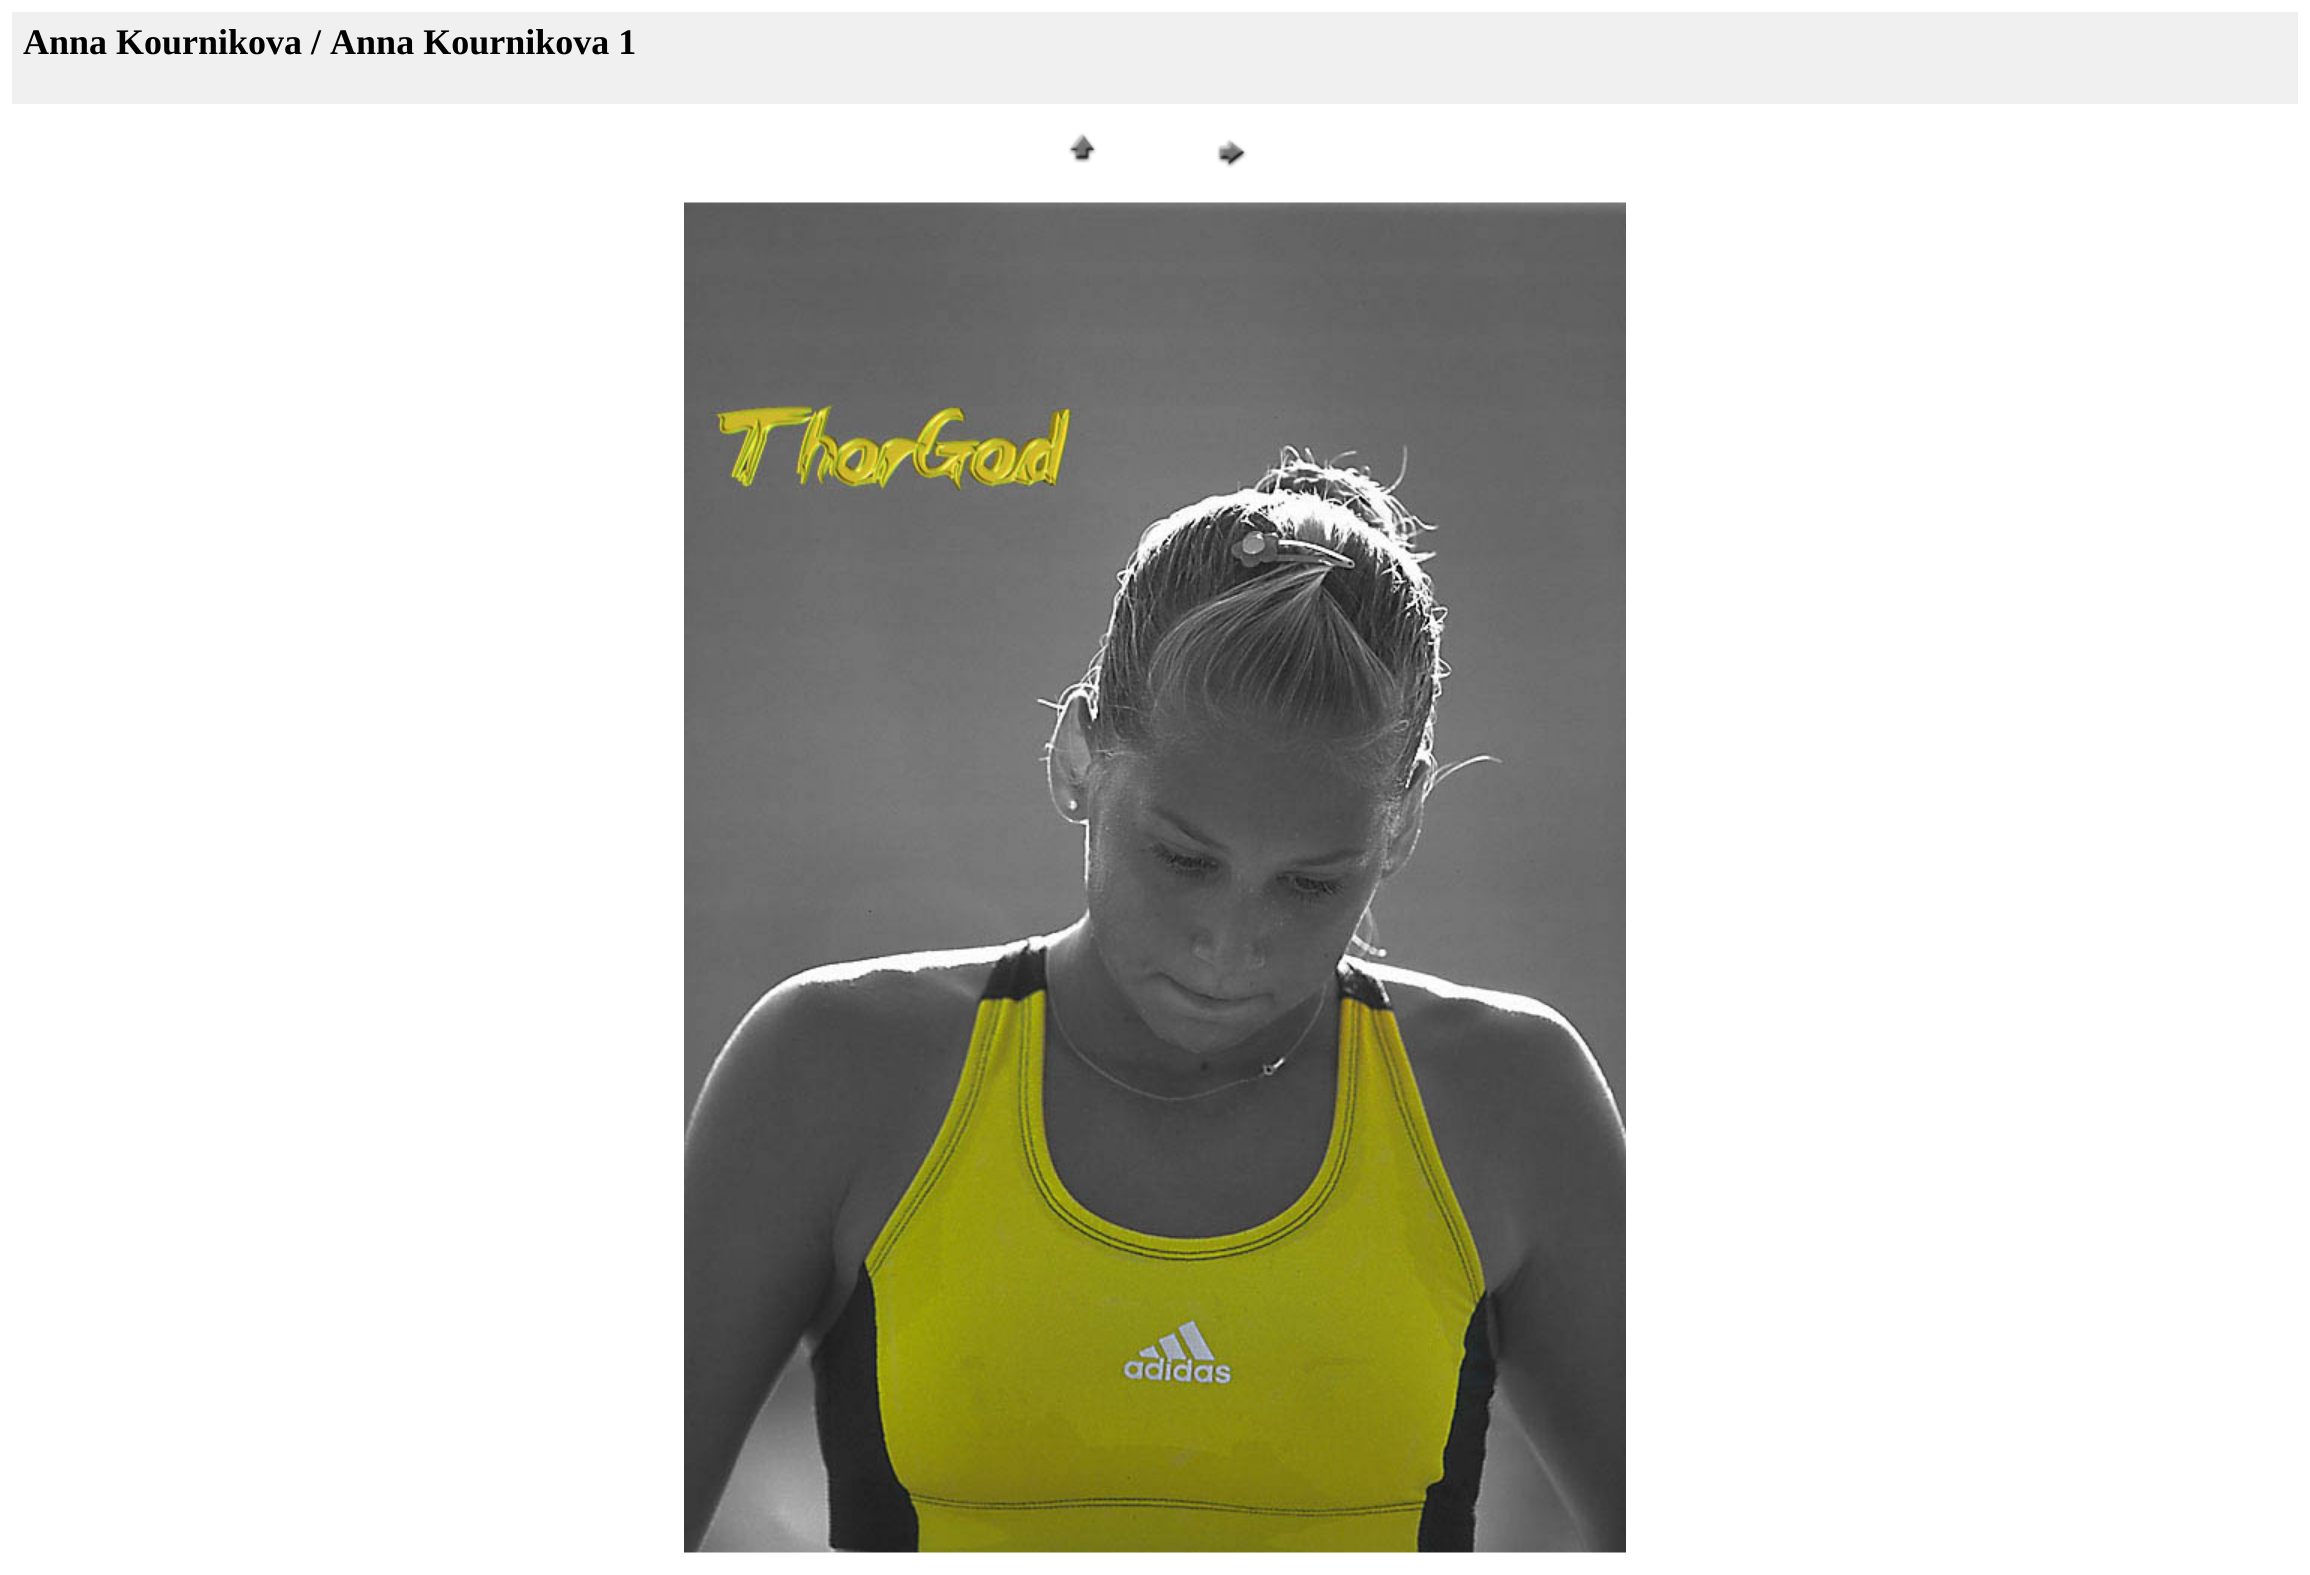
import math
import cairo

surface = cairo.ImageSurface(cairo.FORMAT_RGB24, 2310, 1575)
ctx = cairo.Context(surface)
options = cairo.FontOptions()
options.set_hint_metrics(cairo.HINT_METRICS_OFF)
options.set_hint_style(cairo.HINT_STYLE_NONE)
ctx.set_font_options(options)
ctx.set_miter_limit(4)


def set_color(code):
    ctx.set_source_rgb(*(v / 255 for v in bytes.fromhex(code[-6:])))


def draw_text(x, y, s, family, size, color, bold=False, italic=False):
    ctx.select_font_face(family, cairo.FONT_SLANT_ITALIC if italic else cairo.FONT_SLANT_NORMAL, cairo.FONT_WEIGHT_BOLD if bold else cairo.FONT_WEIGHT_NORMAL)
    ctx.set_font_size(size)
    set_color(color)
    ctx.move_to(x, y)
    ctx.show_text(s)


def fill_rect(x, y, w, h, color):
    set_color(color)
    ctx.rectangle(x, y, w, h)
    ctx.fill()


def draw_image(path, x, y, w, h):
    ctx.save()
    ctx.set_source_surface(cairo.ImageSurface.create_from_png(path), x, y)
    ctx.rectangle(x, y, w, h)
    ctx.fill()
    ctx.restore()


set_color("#ffffff")
ctx.paint()
fill_rect(12, 12, 2286, 92, "#f0f0f0")
draw_text(23, 54, "Anna Kournikova / Anna Kournikova 1", "Liberation Serif", 36, "#000000", bold=True)
draw_image("assets/img1.png", 1068, 133, 29, 30)
draw_image("assets/img2.png", 1217, 139, 30, 29)
draw_image("assets/img3.png", 684, 202, 942, 1351)
surface.write_to_png("output.png")
